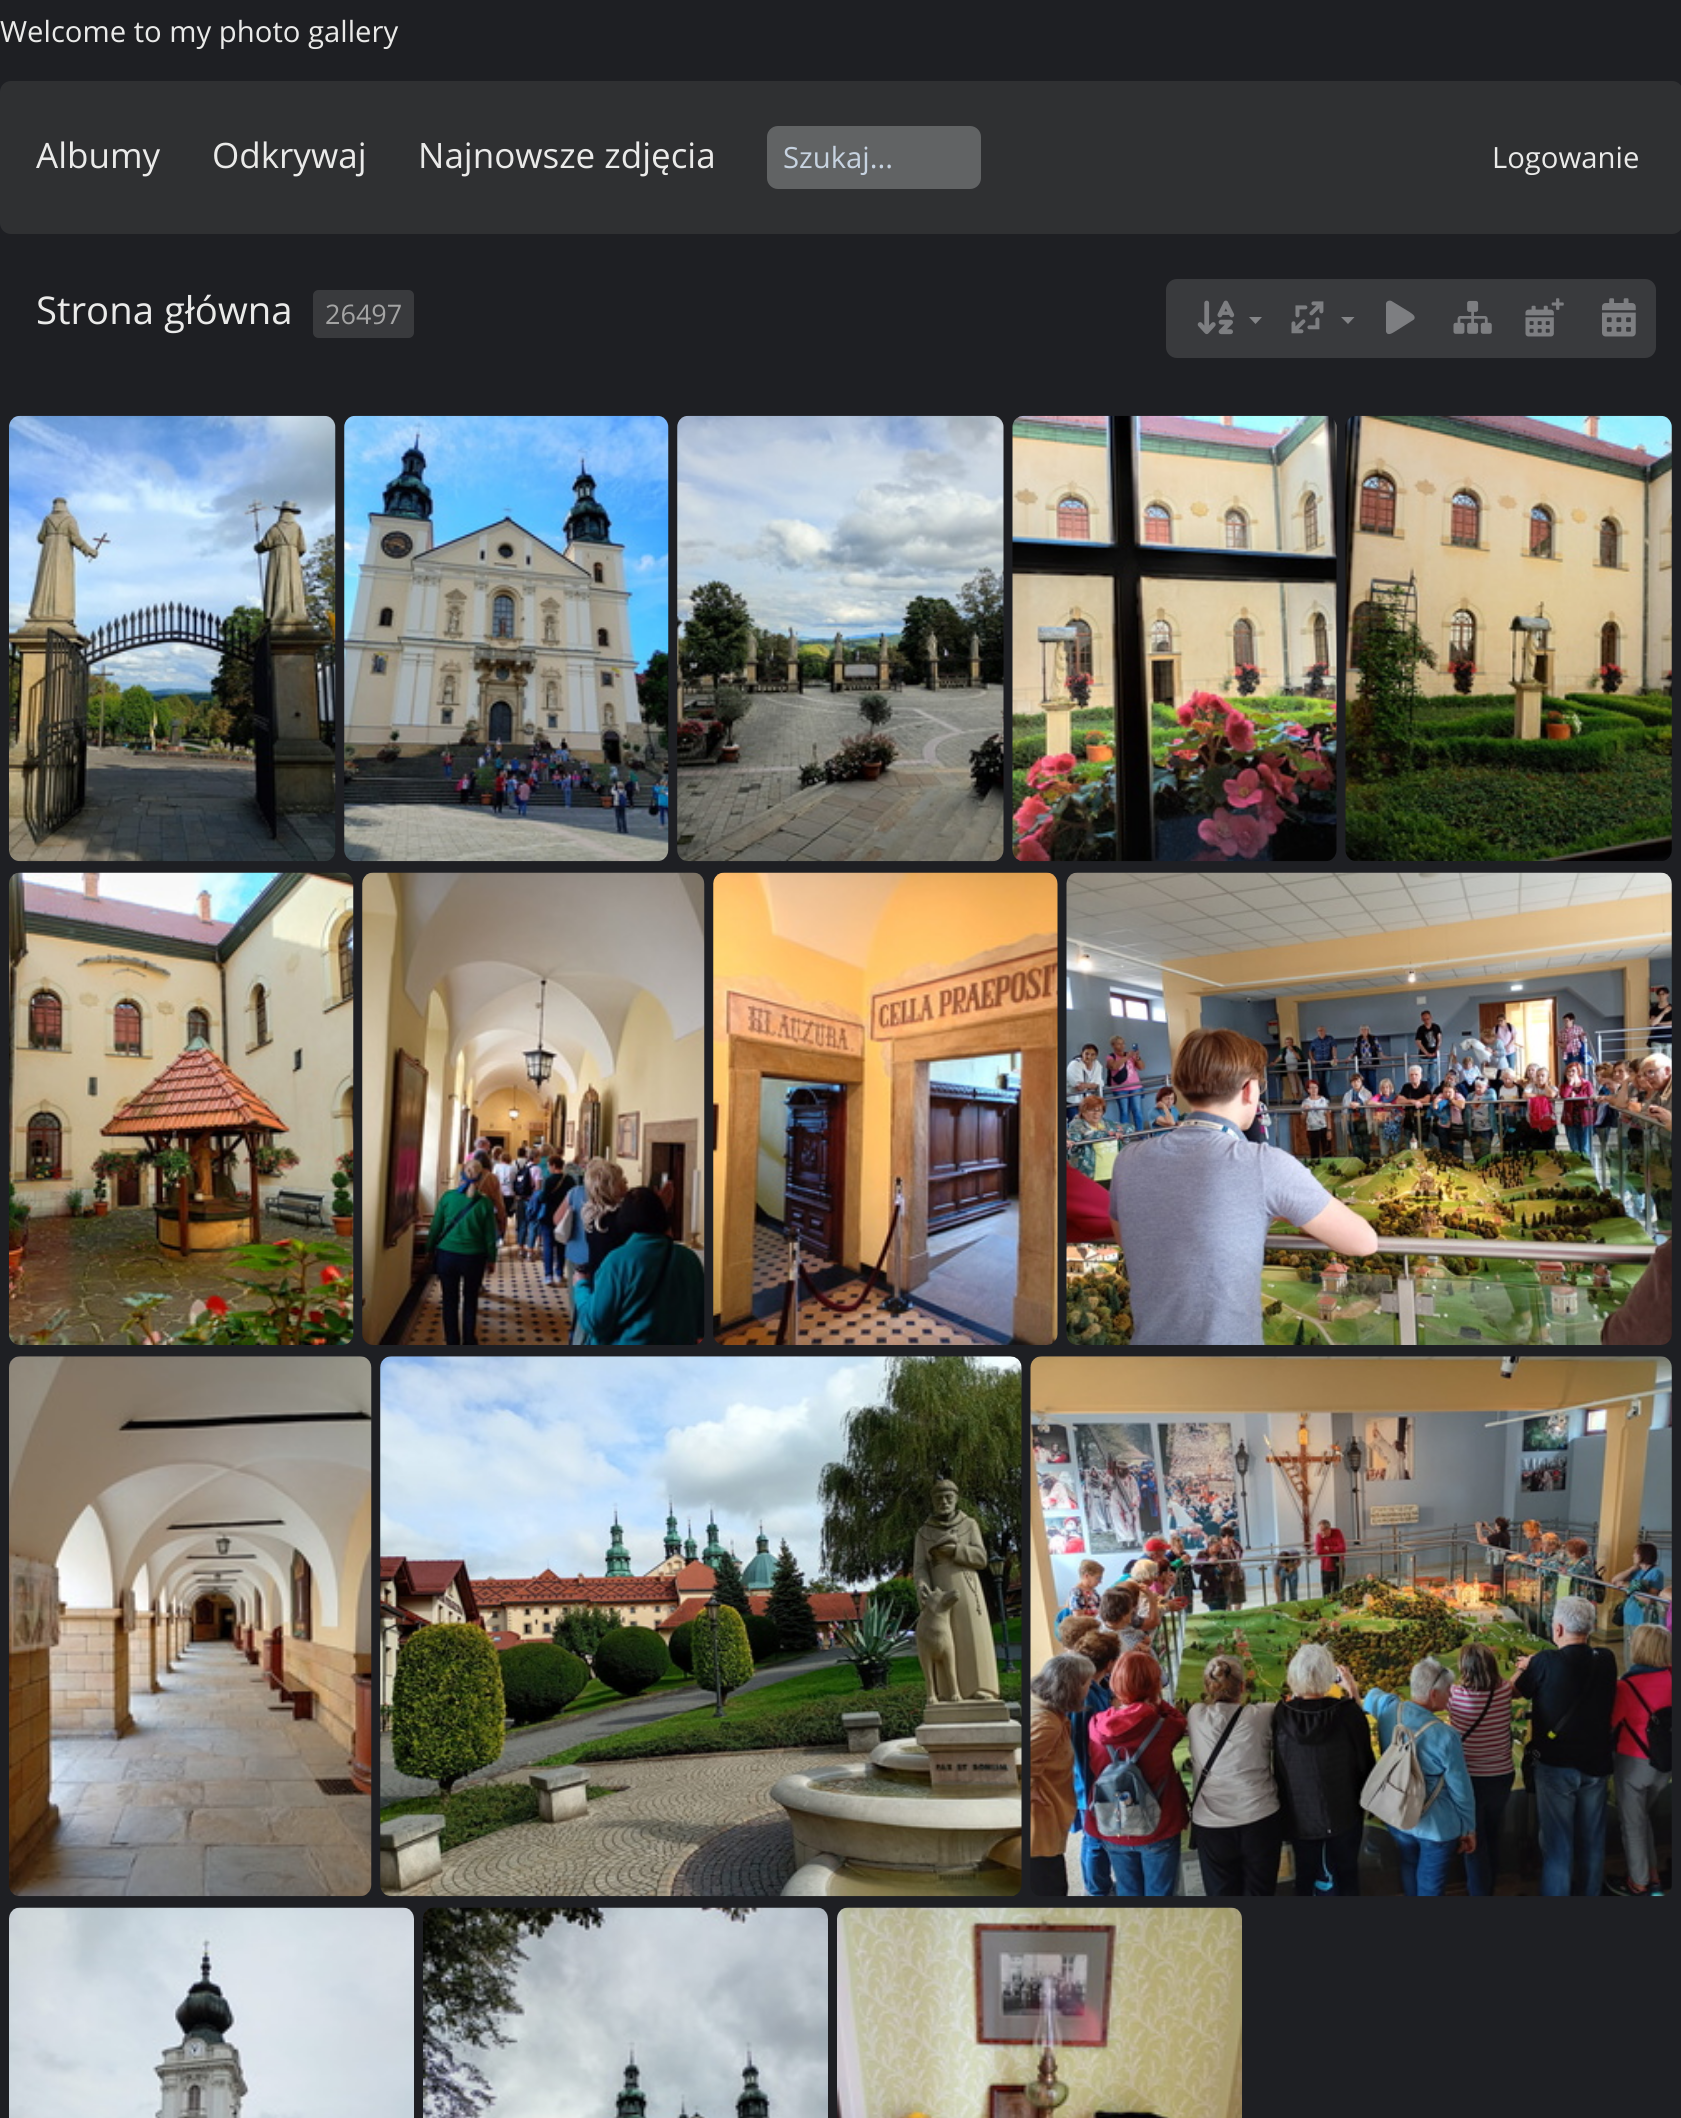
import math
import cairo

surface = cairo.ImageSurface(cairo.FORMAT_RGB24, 1681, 2118)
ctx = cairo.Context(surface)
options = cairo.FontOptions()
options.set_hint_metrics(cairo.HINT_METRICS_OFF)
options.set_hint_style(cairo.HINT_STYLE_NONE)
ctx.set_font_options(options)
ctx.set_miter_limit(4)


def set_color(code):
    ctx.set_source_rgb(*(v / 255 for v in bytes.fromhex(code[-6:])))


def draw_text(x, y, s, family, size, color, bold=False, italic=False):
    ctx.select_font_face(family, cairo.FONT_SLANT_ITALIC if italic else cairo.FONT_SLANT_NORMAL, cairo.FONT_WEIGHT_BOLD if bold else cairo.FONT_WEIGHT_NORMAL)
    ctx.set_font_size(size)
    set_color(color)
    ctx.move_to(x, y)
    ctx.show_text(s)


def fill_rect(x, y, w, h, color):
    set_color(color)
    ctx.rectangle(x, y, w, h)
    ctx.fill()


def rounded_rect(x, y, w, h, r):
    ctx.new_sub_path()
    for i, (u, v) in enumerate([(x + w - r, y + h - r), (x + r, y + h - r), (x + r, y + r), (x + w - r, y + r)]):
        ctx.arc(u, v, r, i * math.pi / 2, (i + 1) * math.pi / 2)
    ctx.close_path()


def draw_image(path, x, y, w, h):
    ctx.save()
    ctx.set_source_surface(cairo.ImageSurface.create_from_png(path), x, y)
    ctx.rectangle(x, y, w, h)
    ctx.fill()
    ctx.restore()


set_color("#1e1f23")
ctx.paint()
draw_text(0, 42, "Welcome to my photo gallery", "Open Sans", 29.25, "#eaeae9")
set_color("#2f3032")
rounded_rect(0, 81, 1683, 153, 11)
ctx.fill()
draw_text(36, 168, "Albumy", "Open Sans", 35, "#eaeae9")
draw_text(212, 168, "Odkrywaj", "Open Sans", 35, "#eaeae9")
draw_text(418, 168, "Najnowsze zdjęcia", "Open Sans", 35, "#eaeae9")
set_color("#616364")
rounded_rect(767, 126, 214, 63, 11)
ctx.fill()
draw_text(783, 168, "Szukaj...", "Open Sans", 29.25, "#c7d3e1")
draw_text(1492, 168, "Logowanie", "Open Sans", 29.25, "#eaeae9")
draw_text(36, 324, "Strona główna", "Open Sans", 38.25, "#eaeae9")
fill_rect(324, 290, 79, 48, "#393a3d")
draw_text(325, 324, "26497", "Open Sans", 27, "#a4a4a4")
set_color("#393a3d")
ctx.new_path()
ctx.move_to(318.5, 290)
ctx.line_to(324, 290)
ctx.line_to(324, 338)
ctx.line_to(318.5, 338)
ctx.curve_to(315.5, 338, 313, 335.5, 313, 332.5)
ctx.line_to(313, 295.5)
ctx.curve_to(313, 292.5, 315.5, 290, 318.5, 290)
ctx.close_path()
ctx.fill()
ctx.new_path()
ctx.move_to(403, 290)
ctx.line_to(408.5, 290)
ctx.curve_to(411.5, 290, 414, 292.5, 414, 295.5)
ctx.line_to(414, 332.5)
ctx.curve_to(414, 335.5, 411.5, 338, 408.5, 338)
ctx.line_to(403, 338)
ctx.close_path()
ctx.fill()
rounded_rect(1166, 279, 490, 79, 11)
ctx.fill()
draw_image("assets/img1.png", 1197, 300, 38, 35)
set_color("#848588")
ctx.new_path()
ctx.move_to(1249, 317)
ctx.line_to(1262, 317)
ctx.line_to(1255.5, 324)
ctx.close_path()
ctx.fill()
draw_image("assets/img2.png", 1291, 301, 33, 33)
ctx.new_path()
ctx.move_to(1341, 317)
ctx.line_to(1354.5, 317)
ctx.line_to(1348, 324)
ctx.close_path()
ctx.fill()
set_color("#7d7e81")
ctx.new_path()
ctx.move_to(1391.5, 301)
ctx.curve_to(1389.5, 300, 1386.5, 301, 1386, 303.5)
ctx.line_to(1386, 331.5)
ctx.curve_to(1387.5, 336.5, 1392.5, 333, 1395, 331.5)
ctx.line_to(1414, 319.5)
ctx.curve_to(1416.5, 316, 1411.5, 313.5, 1409.5, 312)
ctx.close_path()
ctx.fill()
draw_image("assets/img3.png", 1453, 300, 39, 34)
draw_image("assets/img4.png", 1525, 298, 39, 39)
draw_image("assets/img5.png", 1602, 298, 34, 39)
draw_image("assets/img6.png", 9, 415, 327, 447)
draw_image("assets/img7.png", 344, 415, 325, 447)
draw_image("assets/img8.png", 677, 415, 327, 447)
draw_image("assets/img9.png", 1012, 415, 325, 447)
draw_image("assets/img10.png", 1345, 415, 327, 446)
draw_image("assets/img11.png", 9, 872, 345, 473)
draw_image("assets/img12.png", 362, 872, 343, 473)
draw_image("assets/img13.png", 713, 872, 345, 473)
draw_image("assets/img14.png", 1066, 872, 606, 473)
draw_image("assets/img15.png", 9, 1356, 363, 541)
draw_image("assets/img16.png", 380, 1356, 642, 541)
draw_image("assets/img17.png", 1030, 1356, 642, 541)
draw_image("assets/img18.png", 9, 1907, 405, 211)
draw_image("assets/img19.png", 423, 1907, 405, 211)
draw_image("assets/img20.png", 837, 1907, 405, 211)
surface.write_to_png("output.png")
